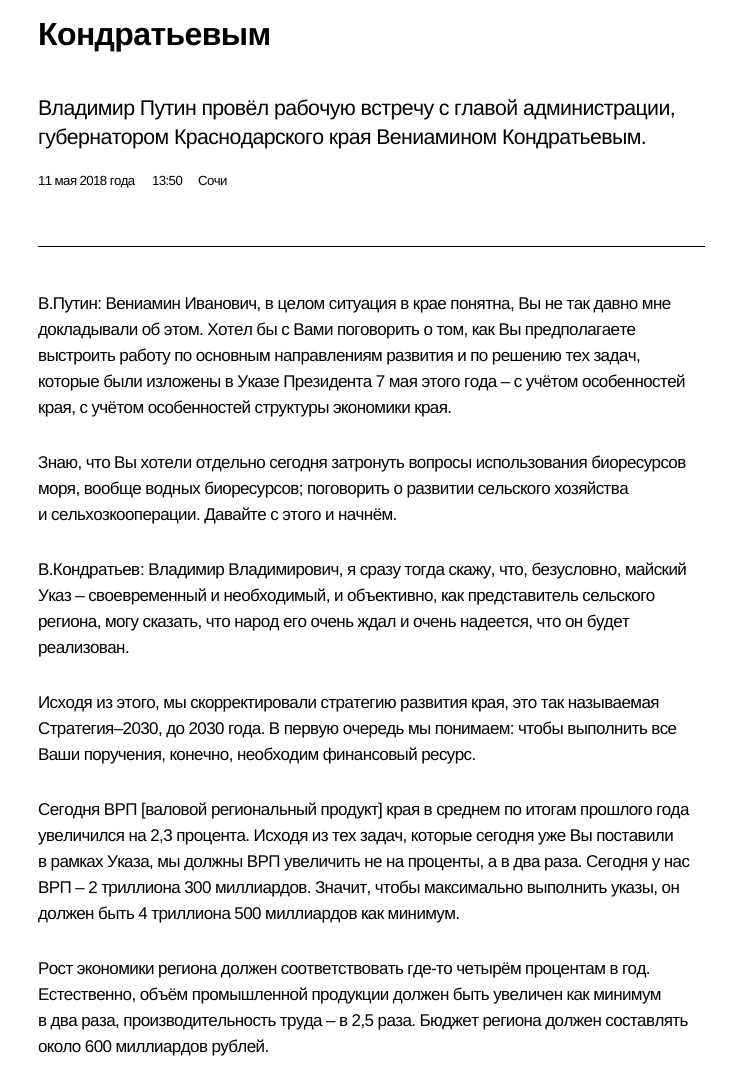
import math
import cairo

surface = cairo.ImageSurface(cairo.FORMAT_RGB24, 743, 1081)
ctx = cairo.Context(surface)
options = cairo.FontOptions()
options.set_hint_metrics(cairo.HINT_METRICS_OFF)
options.set_hint_style(cairo.HINT_STYLE_NONE)
ctx.set_font_options(options)
ctx.set_miter_limit(4)


def set_color(code):
    ctx.set_source_rgb(*(v / 255 for v in bytes.fromhex(code[-6:])))


def draw_spaced(x, y, s, letter, word):
    ctx.move_to(x, y)
    for ch in s:
        ctx.show_text(ch)
        ctx.rel_move_to(letter + word * (ch == ' '), 0)


def fill_rect(x, y, w, h, color):
    set_color(color)
    ctx.rectangle(x, y, w, h)
    ctx.fill()


set_color("#ffffff")
ctx.paint()
fill_rect(38, 246, 667, 1, "#000000")
ctx.select_font_face("Liberation Sans", cairo.FONT_SLANT_NORMAL, cairo.FONT_WEIGHT_BOLD)
ctx.set_font_size(32)
draw_spaced(38, 45, "Кондратьевым", -0.6, 0)
ctx.select_font_face("Liberation Sans")
ctx.set_font_size(21.3)
draw_spaced(38, 115, "Владимир Путин провёл рабочую встречу с главой администрации,", -0.6, 0)
draw_spaced(38, 144, "губернатором Краснодарского края Вениамином Кондратьевым.", -0.6, 0)
ctx.set_font_size(13.25)
draw_spaced(38, 185, "11 мая 2018 года", -0.6, 0)
draw_spaced(152, 185, "13:50", -0.6, 0)
draw_spaced(198, 185, "Сочи", -0.6, 0)
ctx.set_font_size(17)
draw_spaced(38, 309, "В.Путин: Вениамин Иванович, в целом ситуация в крае понятна, Вы не так давно мне", -0.6, 0)
draw_spaced(38, 335, "докладывали об этом. Хотел бы с Вами поговорить о том, как Вы предполагаете", -0.6, 0)
draw_spaced(38, 361, "выстроить работу по основным направлениям развития и по решению тех задач,", -0.6, 0)
draw_spaced(38, 387, "которые были изложены в Указе Президента 7 мая этого года – с учётом особенностей", -0.6, 0)
draw_spaced(38, 413, "края, с учётом особенностей структуры экономики края.", -0.6, 0)
draw_spaced(38, 468, "Знаю, что Вы хотели отдельно сегодня затронуть вопросы использования биоресурсов", -0.6, 0)
draw_spaced(38, 494, "моря, вообще водных биоресурсов; поговорить о развитии сельского хозяйства", -0.6, 0)
draw_spaced(38, 520, "и сельхозкооперации. Давайте с этого и начнём.", -0.6, 0)
draw_spaced(38, 575, "В.Кондратьев", -0.6, 0)
draw_spaced(140, 575, ": Владимир Владимирович, я сразу тогда скажу, что, безусловно, майский", -0.6, 0)
draw_spaced(38, 601, "Указ – своевременный и необходимый, и объективно, как представитель сельского", -0.6, 0)
draw_spaced(38, 627, "региона, могу сказать, что народ его очень ждал и очень надеется, что он будет", -0.6, 0)
draw_spaced(38, 653, "реализован.", -0.6, 0)
draw_spaced(38, 708, "Исходя из этого, мы скорректировали стратегию развития края, это так называемая", -0.6, 0)
draw_spaced(38, 734, "Стратегия–2030, до 2030 года. В первую очередь мы понимаем: чтобы выполнить все", -0.6, 0)
draw_spaced(38, 760, "Ваши поручения, конечно, необходим финансовый ресурс.", -0.6, 0)
draw_spaced(38, 815, "Сегодня ВРП [валовой региональный продукт] края в среднем по итогам прошлого года", -0.6, 0)
draw_spaced(38, 841, "увеличился на 2,3 процента. Исходя из тех задач, которые сегодня уже Вы поставили", -0.6, 0)
draw_spaced(38, 867, "в рамках Указа, мы должны ВРП увеличить не на проценты, а в два раза. Сегодня у нас", -0.6, 0)
draw_spaced(38, 893, "ВРП – 2 триллиона 300 миллиардов. Значит, чтобы максимально выполнить указы, он", -0.6, 0)
draw_spaced(38, 919, "должен быть 4 триллиона 500 миллиардов как минимум.", -0.6, 0)
draw_spaced(38, 974, "Рост экономики региона должен соответствовать где-то четырём процентам в год.", -0.6, 0)
draw_spaced(38, 1000, "Естественно, объём промышленной продукции должен быть увеличен как минимум", -0.6, 0)
draw_spaced(38, 1026, "в два раза, производительность труда – в 2,5 раза. Бюджет региона должен составлять", -0.6, 0)
draw_spaced(38, 1052, "около 600 миллиардов рублей.", -0.6, 0)
surface.write_to_png("output.png")
